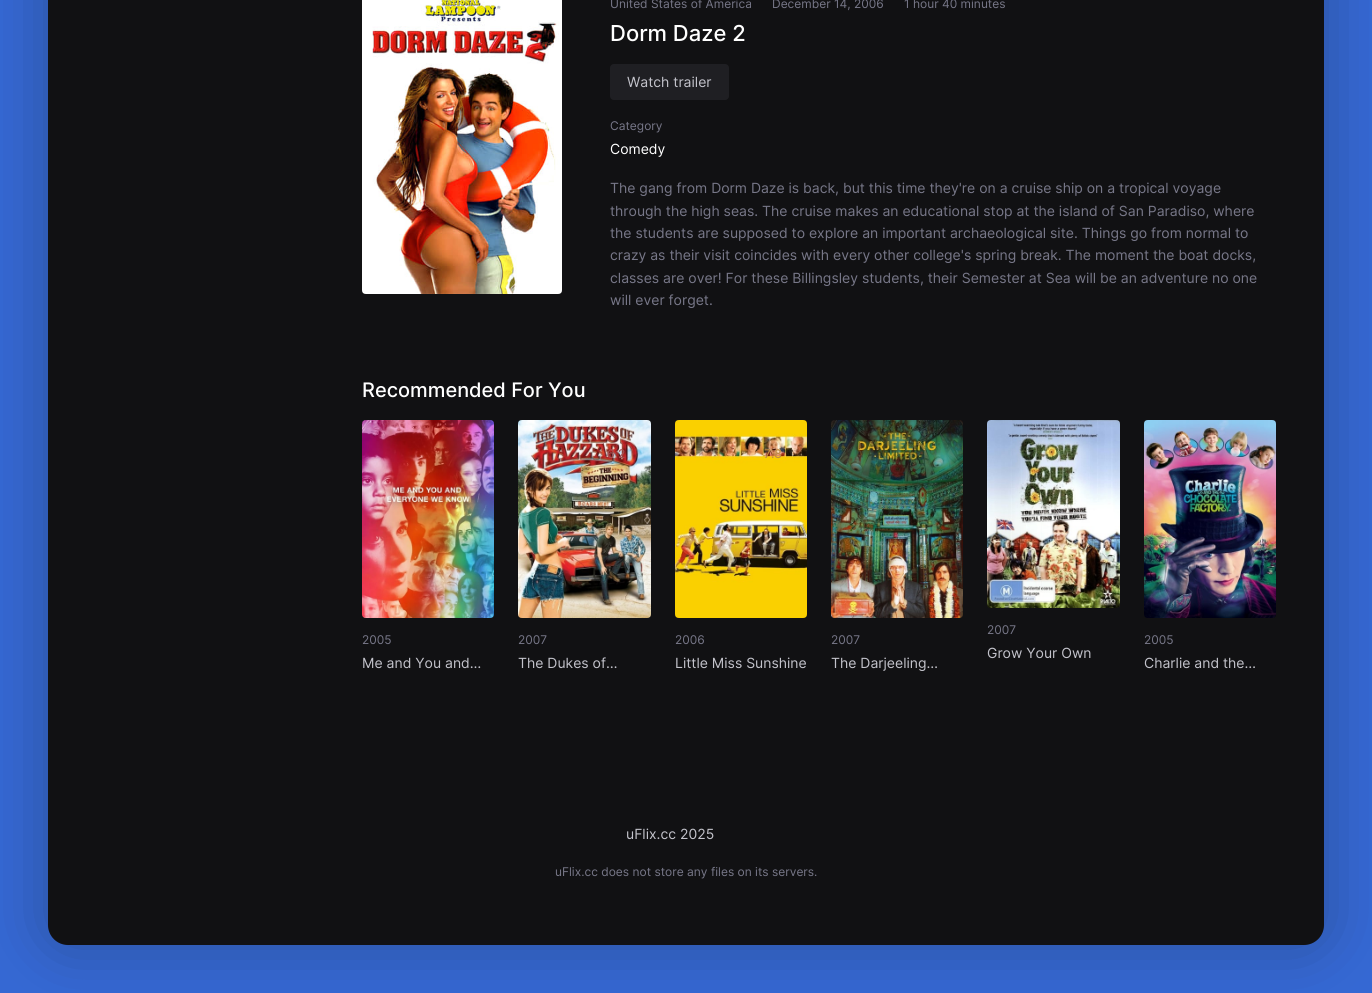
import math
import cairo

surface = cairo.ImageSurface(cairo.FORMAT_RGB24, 1372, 993)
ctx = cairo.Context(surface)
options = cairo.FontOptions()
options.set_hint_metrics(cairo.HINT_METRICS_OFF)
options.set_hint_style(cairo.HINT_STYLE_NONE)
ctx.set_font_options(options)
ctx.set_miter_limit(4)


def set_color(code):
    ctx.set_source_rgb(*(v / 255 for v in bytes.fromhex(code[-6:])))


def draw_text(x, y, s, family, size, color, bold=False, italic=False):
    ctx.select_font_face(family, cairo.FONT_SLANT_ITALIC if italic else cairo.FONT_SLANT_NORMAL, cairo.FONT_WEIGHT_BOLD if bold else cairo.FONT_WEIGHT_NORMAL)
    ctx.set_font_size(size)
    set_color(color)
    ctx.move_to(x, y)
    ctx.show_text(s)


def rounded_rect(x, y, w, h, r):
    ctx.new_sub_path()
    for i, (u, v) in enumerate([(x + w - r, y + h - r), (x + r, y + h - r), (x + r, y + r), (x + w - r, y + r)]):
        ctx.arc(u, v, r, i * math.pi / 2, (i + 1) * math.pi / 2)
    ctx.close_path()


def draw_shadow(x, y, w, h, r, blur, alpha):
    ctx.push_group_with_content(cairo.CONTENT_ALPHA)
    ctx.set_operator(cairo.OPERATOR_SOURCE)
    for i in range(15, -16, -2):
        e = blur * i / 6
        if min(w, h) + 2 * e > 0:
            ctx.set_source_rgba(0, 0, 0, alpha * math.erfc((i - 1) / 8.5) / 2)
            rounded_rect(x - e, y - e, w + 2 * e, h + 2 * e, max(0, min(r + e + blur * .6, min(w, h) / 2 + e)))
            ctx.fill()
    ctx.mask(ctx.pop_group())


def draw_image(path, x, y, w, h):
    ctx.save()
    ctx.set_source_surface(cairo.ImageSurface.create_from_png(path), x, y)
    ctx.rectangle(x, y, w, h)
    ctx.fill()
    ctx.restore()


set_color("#3568d3")
ctx.paint()
set_color("#111113")
draw_shadow(48, -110, 1276, 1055, 20, 30, 0.3)
set_color("#111113")
rounded_rect(48, -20, 1276, 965, 20)
ctx.fill()
draw_image("assets/img1.png", 362, 0, 200, 294)
draw_text(610, 8, "United States of America", "Inter", 12, "#777788")
draw_text(772, 8, "December 14, 2006", "Inter", 12, "#777788")
draw_text(904, 8, "1 hour 40 minutes", "Inter", 12, "#777788")
draw_text(610, 41, "Dorm Daze 2", "Inter Medium", 22, "#ffffff")
set_color("#1f1f23")
rounded_rect(610, 64, 119, 36, 4)
ctx.fill()
draw_text(627, 87, "Watch trailer", "Inter", 14, "#c3c3cb")
draw_text(610, 130, "Category", "Inter", 12, "#777788")
draw_text(610, 154, "Comedy", "Inter", 14, "#ffffff")
draw_text(610, 193, "The gang from Dorm Daze is back, but this time they're on a cruise ship on a tropical voyage", "Inter", 14, "#777788")
draw_text(610, 216, "through the high seas. The cruise makes an educational stop at the island of San Paradiso, where", "Inter", 14, "#777788")
draw_text(610, 238, "the students are supposed to explore an important archaeological site. Things go from normal to", "Inter", 14, "#777788")
draw_text(610, 260, "crazy as their visit coincides with every other college's spring break. The moment the boat docks,", "Inter", 14, "#777788")
draw_text(610, 283, "classes are over! For these Billingsley students, their Semester at Sea will be an adventure no one", "Inter", 14, "#777788")
draw_text(610, 305, "will ever forget.", "Inter", 14, "#777788")
draw_text(362, 397, "Recommended For You", "Inter Medium", 20, "#ffffff")
draw_image("assets/img2.png", 362, 420, 132, 198)
draw_text(362, 644, "2005", "Inter", 12, "#777788")
draw_text(362, 668, "Me and You and…", "Inter", 14, "#c3c3cb")
draw_image("assets/img3.png", 518, 420, 133, 198)
draw_text(607, 458, "6.2", "Inter Medium", 12, "#a44f50")
draw_text(518, 644, "2007", "Inter", 12, "#777788")
draw_text(518, 668, "The Dukes of…", "Inter", 14, "#c3c3cb")
draw_image("assets/img4.png", 675, 420, 132, 198)
draw_text(764, 458, "7.8", "Inter Medium", 12, "#bf8c46")
draw_text(675, 644, "2006", "Inter", 12, "#777788")
draw_text(675, 668, "Little Miss Sunshine", "Inter", 14, "#c3c3cb")
draw_image("assets/img5.png", 831, 420, 132, 198)
draw_text(831, 644, "2007", "Inter", 12, "#777788")
draw_text(831, 668, "The Darjeeling…", "Inter", 14, "#c3c3cb")
draw_image("assets/img6.png", 987, 420, 133, 188)
draw_text(987, 634, "2007", "Inter", 12, "#777788")
draw_text(987, 658, "Grow Your Own", "Inter", 14, "#c3c3cb")
draw_image("assets/img7.png", 1144, 420, 132, 198)
draw_text(1144, 644, "2005", "Inter", 12, "#777788")
draw_text(1144, 668, "Charlie and the…", "Inter", 14, "#c3c3cb")
draw_text(626, 839, "uFlix.cc 2025", "Inter", 14, "#c3c3cb")
draw_text(555, 876, "uFlix.cc does not store any files on its servers.", "Inter", 12, "#777788")
surface.write_to_png("output.png")
